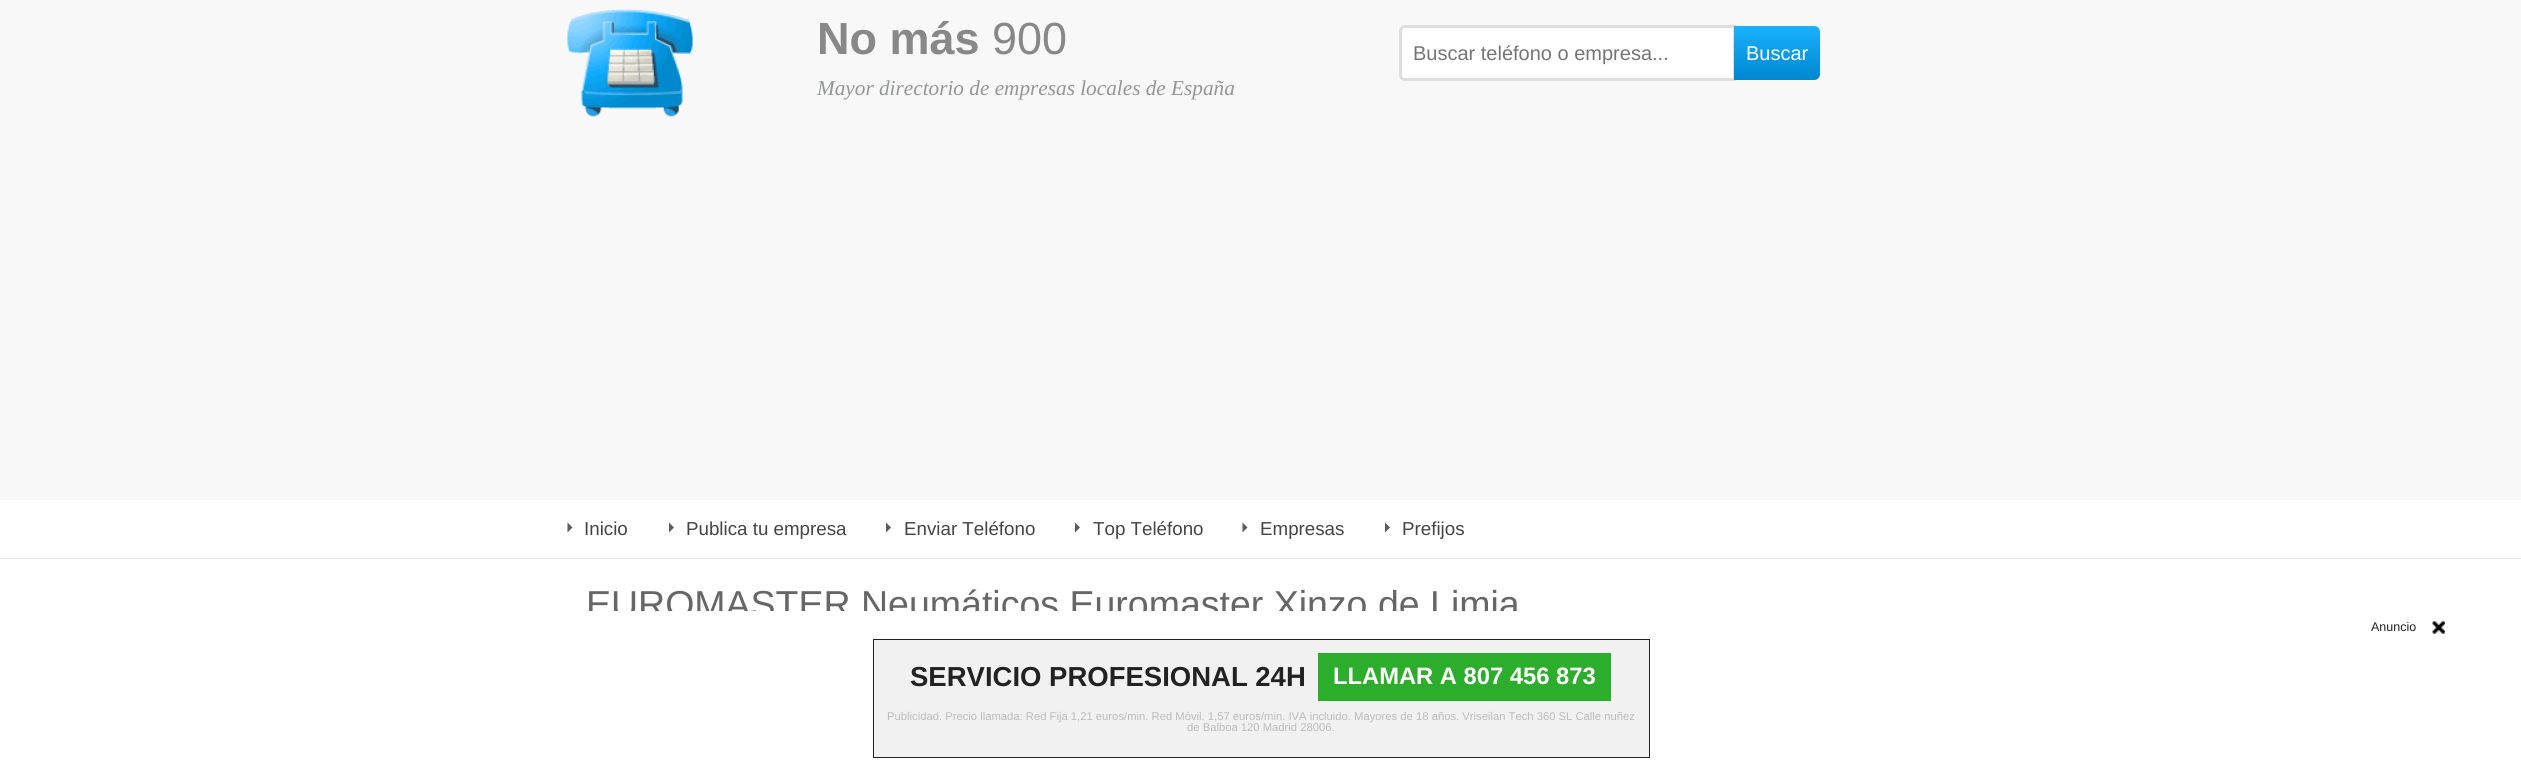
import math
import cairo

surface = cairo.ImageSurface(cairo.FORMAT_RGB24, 2521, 761)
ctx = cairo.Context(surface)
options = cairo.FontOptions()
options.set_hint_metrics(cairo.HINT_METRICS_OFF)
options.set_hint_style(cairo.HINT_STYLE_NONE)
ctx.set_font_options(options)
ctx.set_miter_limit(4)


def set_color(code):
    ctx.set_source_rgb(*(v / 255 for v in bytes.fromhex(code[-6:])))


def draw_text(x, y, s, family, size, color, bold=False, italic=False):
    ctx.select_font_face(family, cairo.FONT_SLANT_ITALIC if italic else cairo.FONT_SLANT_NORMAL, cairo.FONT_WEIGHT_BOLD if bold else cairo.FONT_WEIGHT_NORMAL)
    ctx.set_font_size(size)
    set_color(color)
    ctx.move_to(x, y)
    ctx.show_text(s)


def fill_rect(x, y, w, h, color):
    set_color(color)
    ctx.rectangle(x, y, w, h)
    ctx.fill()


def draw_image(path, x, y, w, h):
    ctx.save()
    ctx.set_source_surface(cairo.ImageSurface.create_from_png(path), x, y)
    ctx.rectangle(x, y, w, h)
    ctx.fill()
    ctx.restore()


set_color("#ffffff")
ctx.paint()
fill_rect(0, 0, 2521, 500, "#f8f8f8")
fill_rect(0, 558, 2521, 1, "#e7e7e7")
draw_image("assets/img1.png", 567, 8, 126, 109)
draw_text(817, 54, "No más", "Liberation Sans", 45, "#888888", bold=True)
draw_text(992, 54, "900", "Liberation Sans", 45, "#888888")
draw_text(817, 95, "Mayor directorio de empresas locales de España", "Liberation Serif", 21.25, "#939597", italic=True)
set_color("#ffffff")
ctx.new_path()
ctx.move_to(1405, 26.5)
ctx.line_to(1734.5, 26.5)
ctx.line_to(1734.5, 79.5)
ctx.line_to(1405, 79.5)
ctx.curve_to(1402.5, 79.5, 1400.5, 77.5, 1400.5, 75)
ctx.line_to(1400.5, 31)
ctx.curve_to(1400.5, 28.5, 1402.5, 26.5, 1405, 26.5)
ctx.close_path()
ctx.fill_preserve()
set_color("#dedede")
ctx.set_line_width(3)
ctx.stroke()
draw_text(1413, 60, "Buscar teléfono o empresa...", "Liberation Sans", 20, "#757575")
gradient = cairo.LinearGradient(1734, 26, 1734, 80)
gradient.add_color_stop_rgba(0, 0.098, 0.698, 1, 1)
gradient.add_color_stop_rgba(1, 0, 0.529, 0.812, 1)
ctx.set_source(gradient)
ctx.new_path()
ctx.move_to(1734, 26)
ctx.line_to(1814, 26)
ctx.curve_to(1817.5, 26, 1820, 28.5, 1820, 32)
ctx.line_to(1820, 74)
ctx.curve_to(1820, 77.5, 1817.5, 80, 1814, 80)
ctx.line_to(1734, 80)
ctx.close_path()
ctx.fill()
draw_text(1746, 60, "Buscar", "Liberation Sans", 20, "#ffffff")
set_color("#5c5c5c")
ctx.new_path()
ctx.move_to(567.5, 532.5)
ctx.line_to(567.5, 522.5)
ctx.line_to(572.5, 527.5)
ctx.close_path()
ctx.fill()
draw_text(584, 535, "Inicio", "Liberation Sans", 18.75, "#444444")
set_color("#5c5c5c")
ctx.new_path()
ctx.move_to(669, 532.5)
ctx.line_to(669, 522.5)
ctx.line_to(674, 527.5)
ctx.close_path()
ctx.fill()
draw_text(686, 535, "Publica tu empresa", "Liberation Sans", 18.75, "#444444")
set_color("#5c5c5c")
ctx.new_path()
ctx.move_to(886, 532.5)
ctx.line_to(886, 522.5)
ctx.line_to(891, 527.5)
ctx.close_path()
ctx.fill()
draw_text(904, 535, "Enviar Teléfono", "Liberation Sans", 18.75, "#444444")
set_color("#5c5c5c")
ctx.new_path()
ctx.move_to(1075, 532.5)
ctx.line_to(1075, 522.5)
ctx.line_to(1080, 527.5)
ctx.close_path()
ctx.fill()
draw_text(1093, 535, "Top Teléfono", "Liberation Sans", 18.75, "#444444")
set_color("#5c5c5c")
ctx.new_path()
ctx.move_to(1242.5, 532.5)
ctx.line_to(1242.5, 522.5)
ctx.line_to(1247.5, 527.5)
ctx.close_path()
ctx.fill()
draw_text(1260, 535, "Empresas", "Liberation Sans", 18.75, "#444444")
set_color("#5c5c5c")
ctx.new_path()
ctx.move_to(1385, 532.5)
ctx.line_to(1385, 522.5)
ctx.line_to(1390, 527.5)
ctx.close_path()
ctx.fill()
draw_text(1402, 535, "Prefijos", "Liberation Sans", 18.75, "#444444")
draw_text(586, 617, "EUROMASTER Neumáticos Euromaster Xinzo de Limia", "Liberation Sans", 37.5, "#666666")
fill_rect(588, 611, 932, 7, "#ffffff")
draw_text(2371, 631, "Anuncio", "Liberation Sans", 12.5, "#222222")
draw_image("assets/img2.png", 2432, 621, 13, 13)
set_color("#f1f1f1")
ctx.rectangle(873.5, 639.5, 776, 118)
ctx.fill_preserve()
set_color("#222222")
ctx.set_line_width(1)
ctx.stroke()
draw_text(910, 686, "SERVICIO PROFESIONAL 24H", "Liberation Sans", 27.5, "#222222", bold=True)
fill_rect(1318, 653, 293, 48, "#2cad2c")
draw_text(1333, 684, "LLAMAR A 807 456 873", "Liberation Sans", 23.75, "#ffffff", bold=True)
draw_text(887, 720, "Publicidad. Precio llamada: Red Fija 1,21 euros/min. Red Móvil. 1,57 euros/min. IVA incluido. Mayores de 18 años. Vriseilan Tech 360 SL Calle nuñez", "Liberation Sans", 11.25, "#bbbbbb")
draw_text(1187, 731, "de Balboa 120 Madrid 28006.", "Liberation Sans", 11.25, "#bbbbbb")
surface.write_to_png("output.png")
